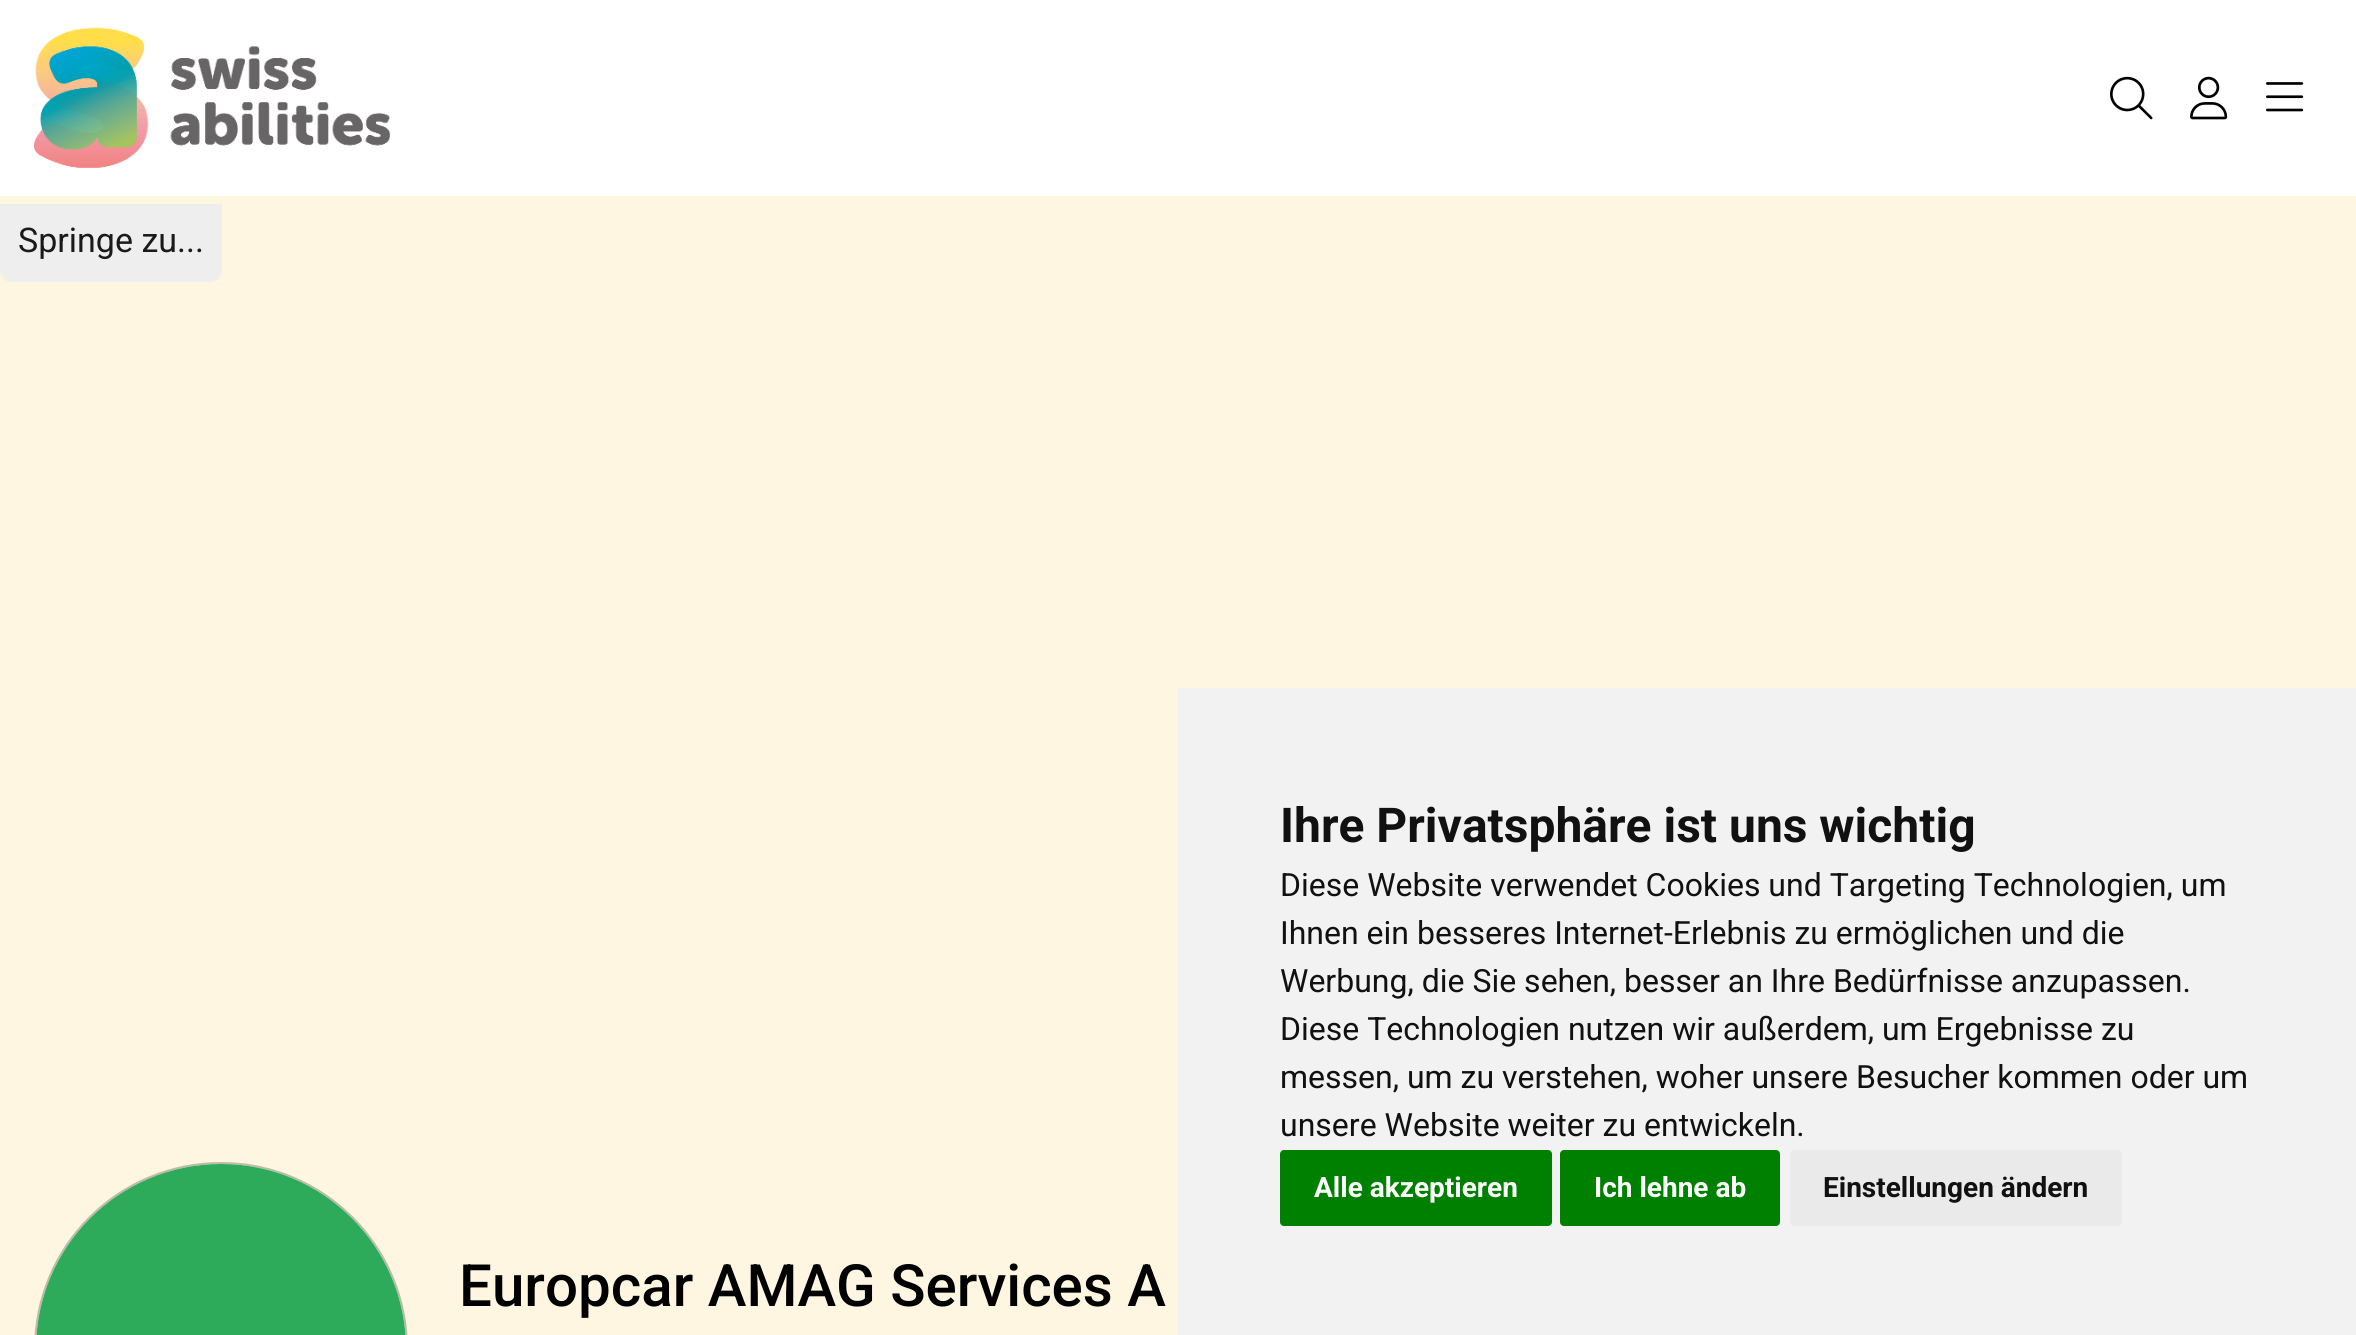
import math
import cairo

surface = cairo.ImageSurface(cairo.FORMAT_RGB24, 2356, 1335)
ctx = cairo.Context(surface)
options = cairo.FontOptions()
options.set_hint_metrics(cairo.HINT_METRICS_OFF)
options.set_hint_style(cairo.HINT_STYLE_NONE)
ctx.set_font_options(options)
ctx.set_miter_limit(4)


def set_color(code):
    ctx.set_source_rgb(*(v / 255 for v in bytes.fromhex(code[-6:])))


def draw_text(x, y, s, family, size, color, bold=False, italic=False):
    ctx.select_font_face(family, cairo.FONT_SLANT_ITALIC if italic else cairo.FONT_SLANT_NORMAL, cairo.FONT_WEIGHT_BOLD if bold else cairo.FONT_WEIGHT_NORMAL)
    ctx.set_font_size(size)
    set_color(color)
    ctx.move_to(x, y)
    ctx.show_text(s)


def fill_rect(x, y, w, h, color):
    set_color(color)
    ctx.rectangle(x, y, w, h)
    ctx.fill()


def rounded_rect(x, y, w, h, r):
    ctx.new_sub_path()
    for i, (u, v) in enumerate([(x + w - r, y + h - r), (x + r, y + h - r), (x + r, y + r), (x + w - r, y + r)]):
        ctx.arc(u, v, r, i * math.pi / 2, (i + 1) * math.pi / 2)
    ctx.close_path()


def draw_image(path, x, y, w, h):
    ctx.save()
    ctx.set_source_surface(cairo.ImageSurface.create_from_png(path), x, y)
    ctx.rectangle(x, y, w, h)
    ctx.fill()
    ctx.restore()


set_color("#ffffff")
ctx.paint()
draw_image("assets/img1.png", 34, 27, 356, 141)
draw_image("assets/img2.png", 2110, 76, 43, 44)
draw_image("assets/img3.png", 2190, 76, 38, 44)
draw_image("assets/img4.png", 2266, 82, 38, 30)
fill_rect(0, 196, 2356, 914, "#fef6e0")
set_color("#eeeeee")
ctx.new_path()
ctx.move_to(2, 204)
ctx.line_to(220, 204)
ctx.line_to(220, 270)
ctx.curve_to(220, 275.5, 215.5, 280, 210, 280)
ctx.line_to(12, 280)
ctx.curve_to(6.5, 280, 2, 275.5, 2, 270)
ctx.close_path()
ctx.fill()
ctx.set_fill_rule(cairo.FILL_RULE_EVEN_ODD)
ctx.new_path()
ctx.move_to(0, 204)
ctx.line_to(222, 204)
ctx.line_to(222, 270)
ctx.curve_to(222, 277, 217, 282, 210, 282)
ctx.line_to(12, 282)
ctx.curve_to(5, 282, 0, 277, 0, 270)
ctx.close_path()
ctx.move_to(2, 204)
ctx.line_to(220, 204)
ctx.line_to(220, 270)
ctx.curve_to(220, 276, 216, 280, 210, 280)
ctx.line_to(12, 280)
ctx.curve_to(6, 280, 2, 276, 2, 270)
ctx.close_path()
ctx.fill()
draw_text(18, 252, "Springe zu...", "Roboto", 34, "#1a1a1a")
fill_rect(1178, 688, 1178, 647, "#f2f2f2")
draw_text(1280, 842, "Ihre Privatsphäre ist uns wichtig", "Roboto", 48, "#111111", bold=True)
draw_text(1280, 896, "Diese Website verwendet Cookies und Targeting Technologien, um", "Roboto", 32, "#111111")
draw_text(1280, 944, "Ihnen ein besseres Internet-Erlebnis zu ermöglichen und die", "Roboto", 32, "#111111")
draw_text(1280, 992, "Werbung, die Sie sehen, besser an Ihre Bedürfnisse anzupassen.", "Roboto", 32, "#111111")
draw_text(1280, 1040, "Diese Technologien nutzen wir außerdem, um Ergebnisse zu", "Roboto", 32, "#111111")
draw_text(1280, 1088, "messen, um zu verstehen, woher unsere Besucher kommen oder um", "Roboto", 32, "#111111")
draw_text(1280, 1136, "unsere Website weiter zu entwickeln.", "Roboto", 32, "#111111")
set_color("#008000")
rounded_rect(1280, 1150, 272, 76, 4)
ctx.fill()
draw_text(1314, 1197, "Alle akzeptieren", "Roboto", 28, "#ffffff", bold=True)
set_color("#008000")
rounded_rect(1560, 1150, 220, 76, 4)
ctx.fill()
draw_text(1594, 1197, "Ich lehne ab", "Roboto", 28, "#ffffff", bold=True)
set_color("#eaeaea")
rounded_rect(1790, 1150, 332, 76, 4)
ctx.fill()
draw_text(1823, 1197, "Einstellungen ändern", "Roboto", 28, "#111111", bold=True)
fill_rect(0, 1110, 1178, 225, "#fef6e0")
rounded_rect(35, 1163, 372, 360, 186)
set_color("#bfb9a8")
ctx.stroke()
set_color("#2eab5a")
rounded_rect(36, 1164, 370, 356, 185)
ctx.fill()
draw_text(459, 1306, "Europcar AMAG Services A", "Roboto Medium", 58.3, "#000000")
surface.write_to_png("output.png")
